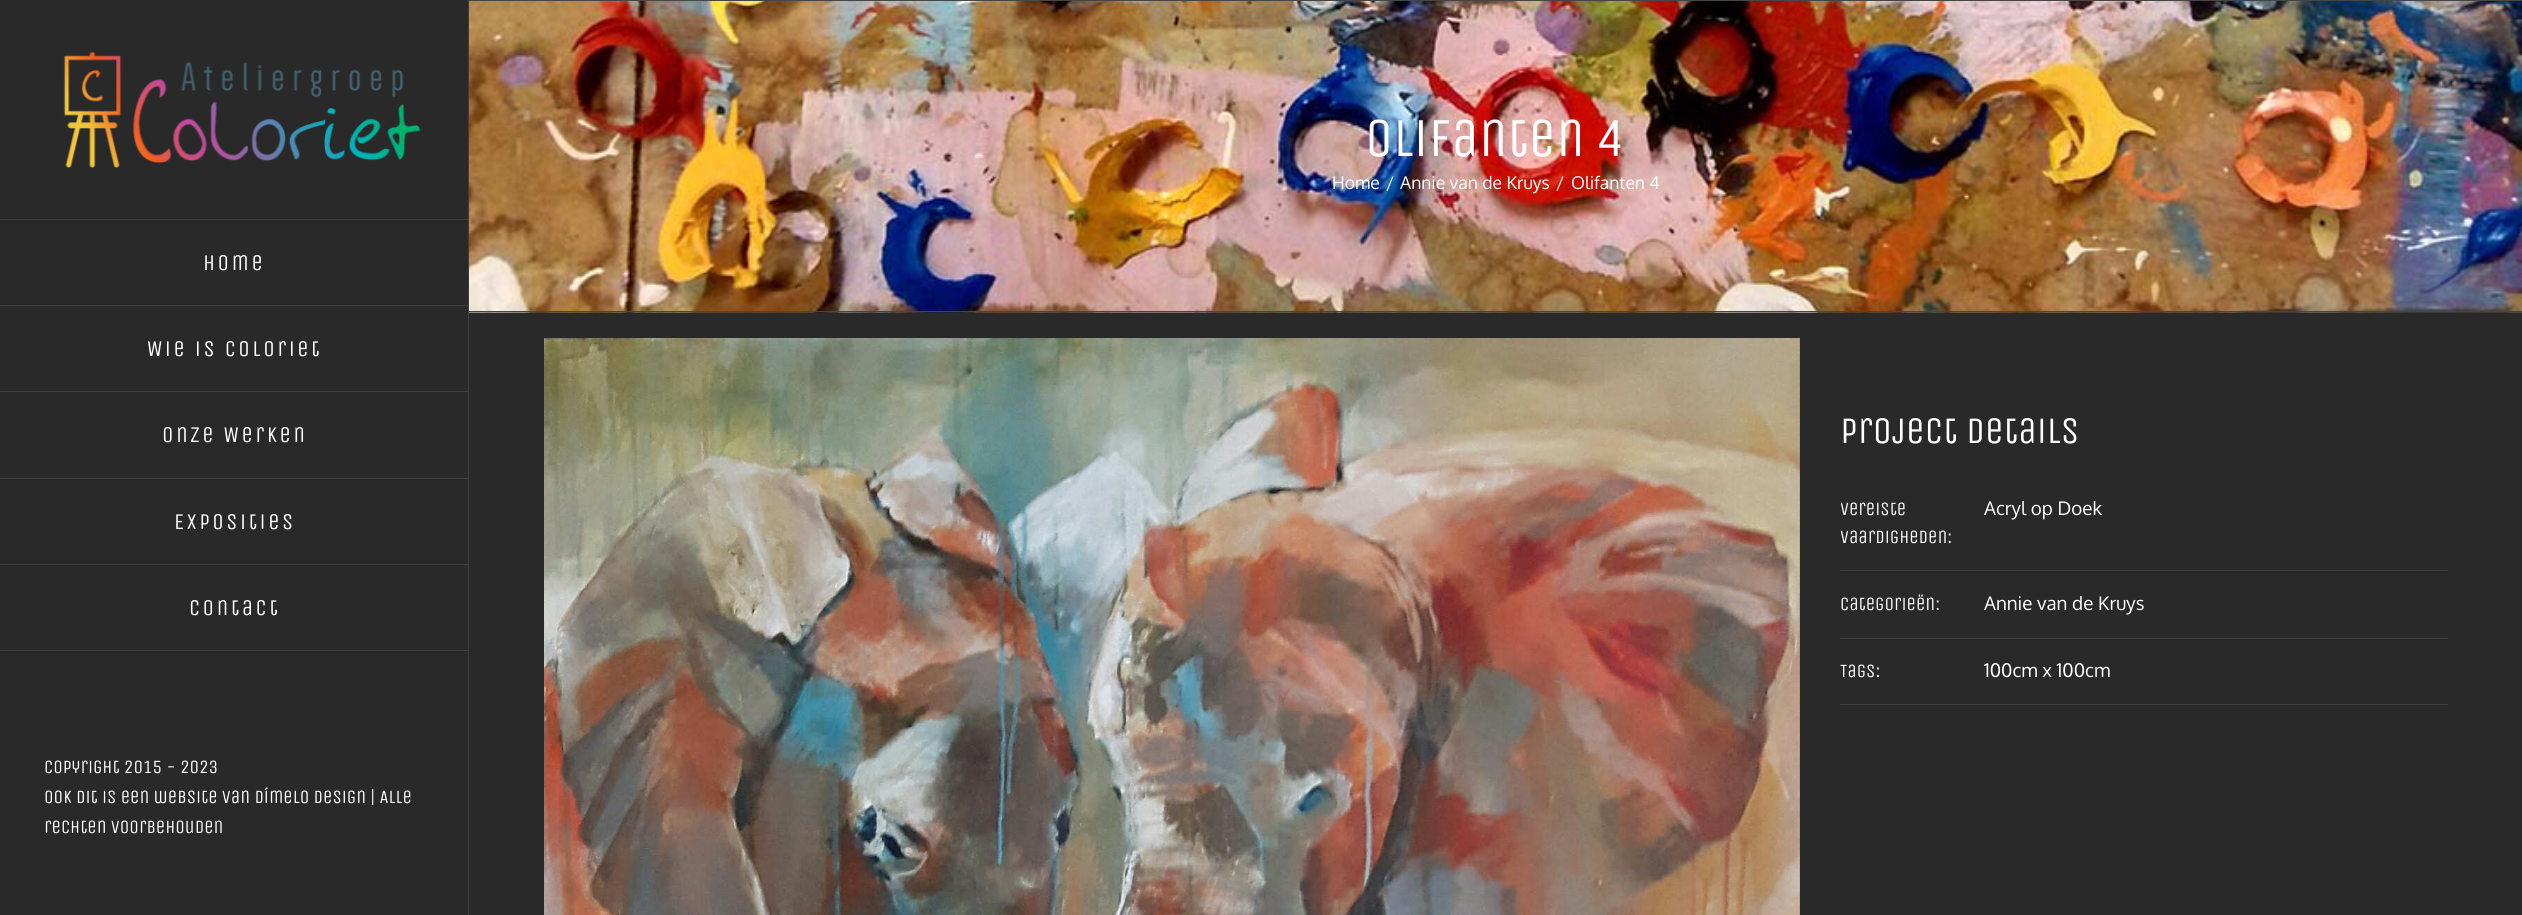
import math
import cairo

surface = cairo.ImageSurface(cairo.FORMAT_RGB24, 2522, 915)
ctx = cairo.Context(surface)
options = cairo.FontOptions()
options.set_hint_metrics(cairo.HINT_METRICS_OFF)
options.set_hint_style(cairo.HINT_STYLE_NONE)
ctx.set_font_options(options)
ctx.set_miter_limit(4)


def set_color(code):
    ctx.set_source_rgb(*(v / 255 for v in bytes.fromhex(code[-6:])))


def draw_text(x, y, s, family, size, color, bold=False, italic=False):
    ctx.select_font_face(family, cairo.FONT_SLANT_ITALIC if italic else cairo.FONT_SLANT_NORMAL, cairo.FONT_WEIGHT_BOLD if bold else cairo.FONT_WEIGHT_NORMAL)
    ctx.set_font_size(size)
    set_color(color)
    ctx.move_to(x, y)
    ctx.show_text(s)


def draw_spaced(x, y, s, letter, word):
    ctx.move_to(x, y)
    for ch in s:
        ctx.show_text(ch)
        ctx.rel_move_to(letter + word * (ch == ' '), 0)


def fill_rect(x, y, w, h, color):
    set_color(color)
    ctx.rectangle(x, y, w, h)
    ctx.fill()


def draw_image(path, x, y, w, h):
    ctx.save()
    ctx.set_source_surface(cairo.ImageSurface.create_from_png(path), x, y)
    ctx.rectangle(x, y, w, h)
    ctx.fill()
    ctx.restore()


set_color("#29292a")
ctx.paint()
fill_rect(469, 312, 2053, 1, "#353535")
draw_image("assets/img1.png", 469, 1, 2053, 312)
fill_rect(469, 0, 2053, 1, "#464646")
fill_rect(469, 311, 2053, 1, "#464646")
draw_text(1365, 156, "Olifanten 4", "Unica One", 55, "#ffffff")
draw_text(1332, 189, "Home", "Oxygen", 17.5, "#ffffff")
draw_text(1386, 189, "/", "Oxygen", 17.5, "#ffffff")
draw_text(1400, 189, "Annie van de Kruys", "Oxygen", 17.5, "#ffffff")
draw_text(1556, 189, "/", "Oxygen", 17.5, "#ffffff")
draw_text(1571, 189, "Olifanten 4", "Oxygen", 17.5, "#ffffff")
draw_image("assets/img2.png", 63, 51, 358, 117)
fill_rect(468, 0, 1, 915, "#3e3e3e")
fill_rect(0, 219, 469, 1, "#3e3e3e")
fill_rect(0, 305, 469, 1, "#3e3e3e")
ctx.select_font_face("Unica One")
ctx.set_font_size(22.5)
set_color("#ffffff")
draw_spaced(203, 270, "Home", 2.5, 0)
fill_rect(0, 391, 469, 1, "#3e3e3e")
set_color("#ffffff")
draw_spaced(147, 356, "Wie is Coloriet", 2.5, 0)
fill_rect(0, 478, 469, 1, "#3e3e3e")
set_color("#ffffff")
draw_spaced(162, 442, "Onze Werken", 2.5, 0)
fill_rect(0, 564, 469, 1, "#3e3e3e")
set_color("#ffffff")
draw_spaced(174, 529, "Exposities", 2.5, 0)
fill_rect(0, 650, 469, 1, "#3e3e3e")
set_color("#ffffff")
draw_spaced(189, 615, "Contact", 2.5, 0)
draw_text(44, 773, "Copyright 2015 - 2023", "Unica One", 18.75, "#ffffff")
draw_text(44, 803, "Ook dit is een website van Dímelo Design | Alle", "Unica One", 18.75, "#ffffff")
draw_text(44, 833, "rechten voorbehouden", "Unica One", 18.75, "#ffffff")
draw_image("assets/img3.png", 544, 338, 1256, 577)
draw_text(1840, 443, "Project details", "Unica One", 37.5, "#ffffff")
fill_rect(1840, 570, 608, 1, "#3e3e3e")
draw_text(1840, 515, "Vereiste", "Unica One", 18.75, "#ffffff")
draw_text(1840, 543, "vaardigheden:", "Unica One", 18.75, "#ffffff")
draw_text(1984, 515, "Acryl op Doek", "Oxygen", 18.75, "#ffffff")
fill_rect(1840, 638, 608, 1, "#3e3e3e")
draw_text(1840, 610, "Categorieën:", "Unica One", 18.75, "#ffffff")
draw_text(1984, 610, "Annie van de Kruys", "Oxygen", 18.75, "#ffffff")
fill_rect(1840, 704, 608, 1, "#3e3e3e")
draw_text(1840, 677, "Tags:", "Unica One", 18.75, "#ffffff")
draw_text(1984, 677, "100cm x 100cm", "Oxygen", 18.75, "#ffffff")
surface.write_to_png("output.png")
